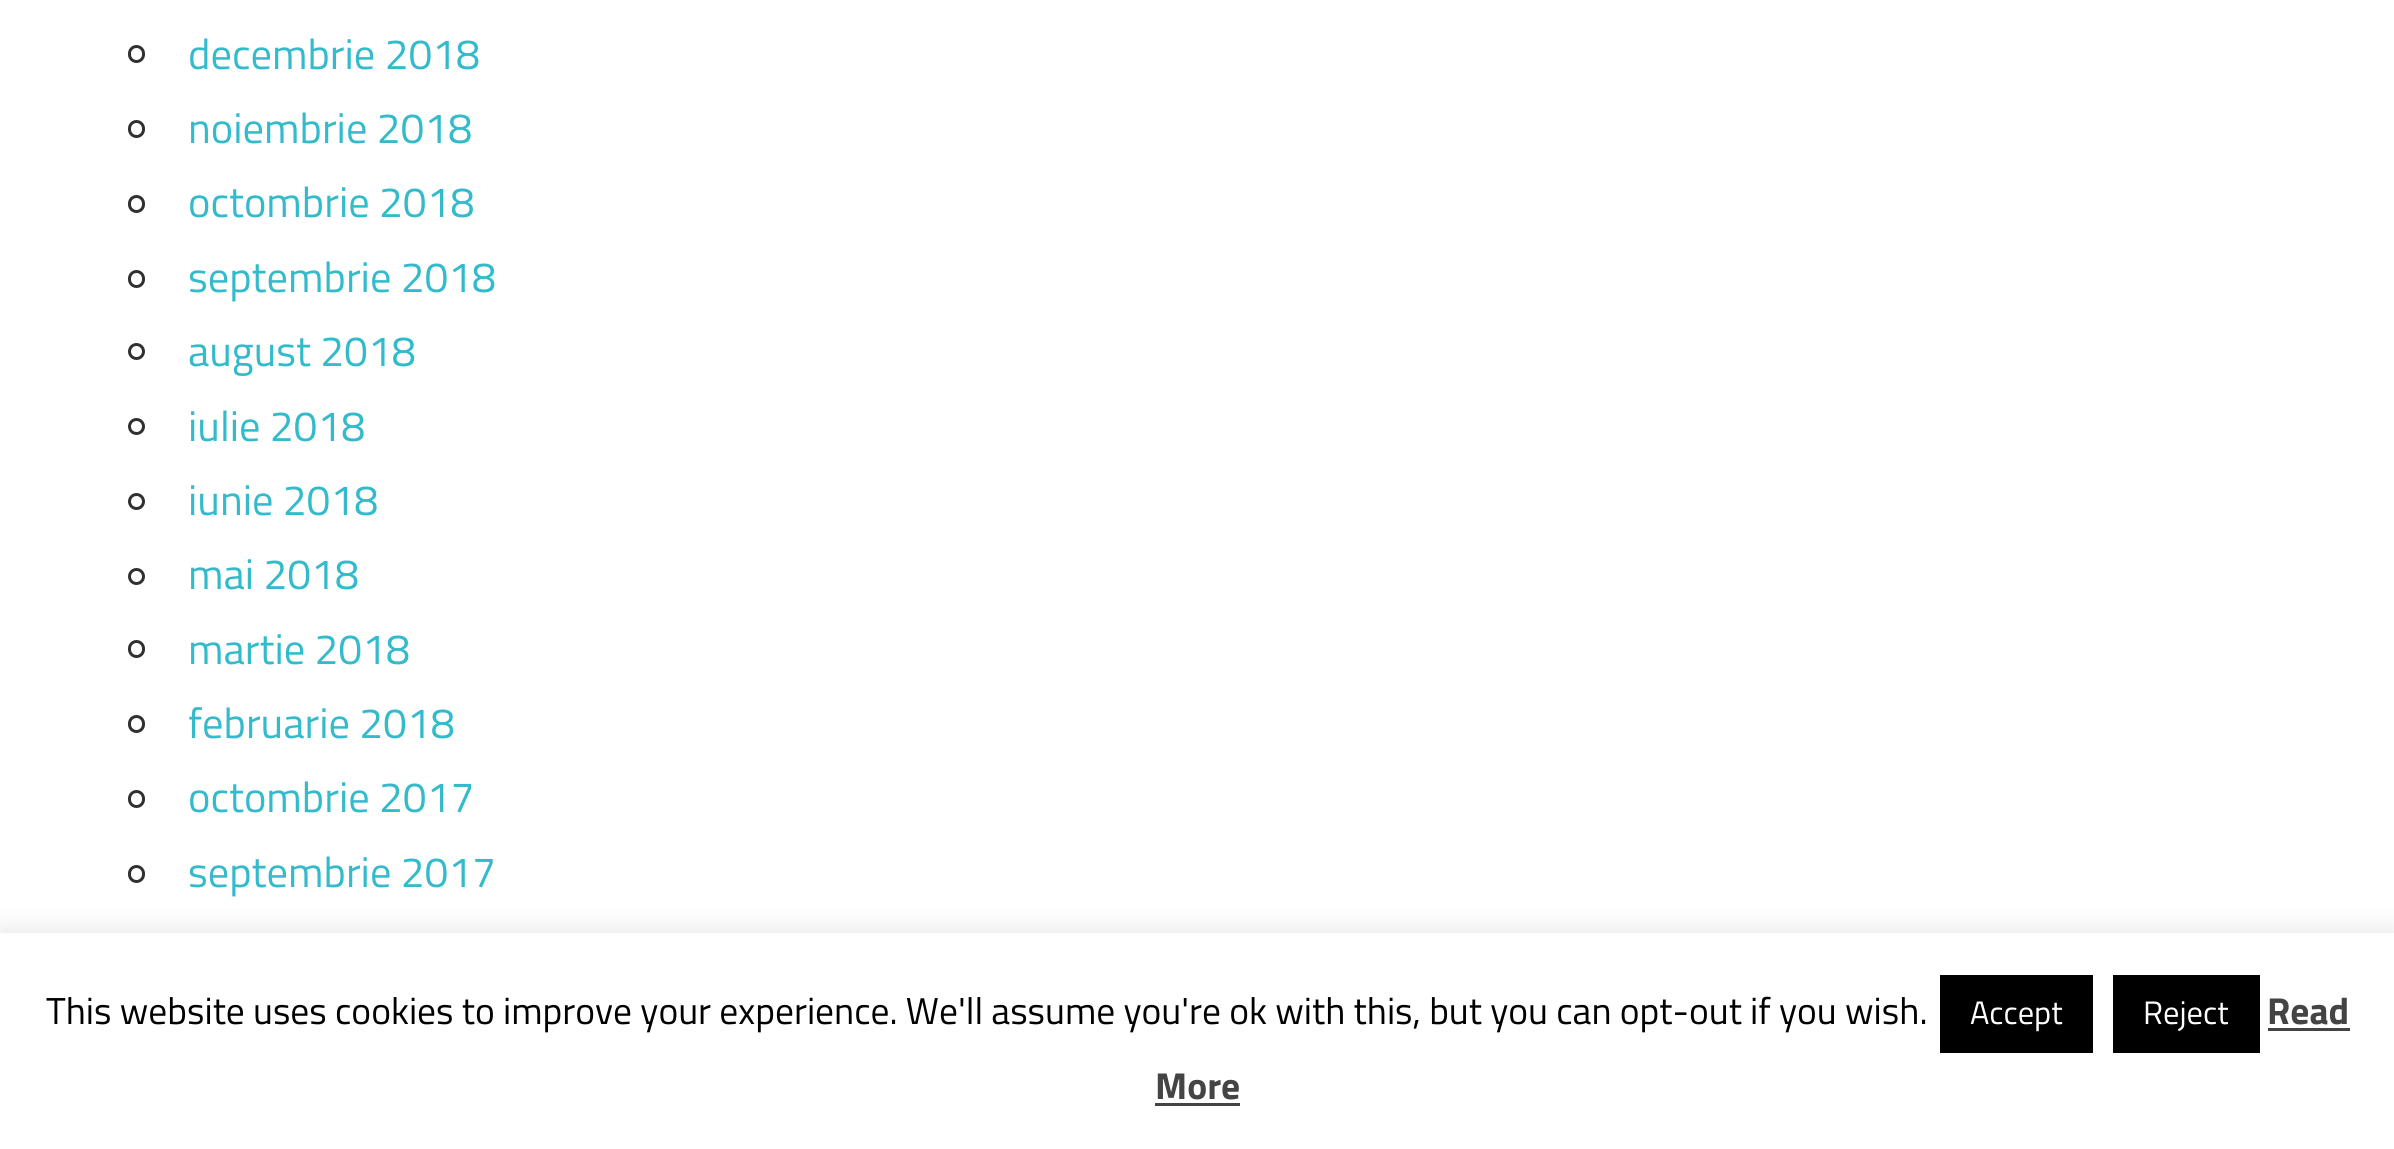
import math
import cairo

surface = cairo.ImageSurface(cairo.FORMAT_RGB24, 2394, 1149)
ctx = cairo.Context(surface)
options = cairo.FontOptions()
options.set_hint_metrics(cairo.HINT_METRICS_OFF)
options.set_hint_style(cairo.HINT_STYLE_NONE)
ctx.set_font_options(options)
ctx.set_miter_limit(4)


def set_color(code):
    ctx.set_source_rgb(*(v / 255 for v in bytes.fromhex(code[-6:])))


def draw_text(x, y, s, family, size, color, bold=False, italic=False):
    ctx.select_font_face(family, cairo.FONT_SLANT_ITALIC if italic else cairo.FONT_SLANT_NORMAL, cairo.FONT_WEIGHT_BOLD if bold else cairo.FONT_WEIGHT_NORMAL)
    ctx.set_font_size(size)
    set_color(color)
    ctx.move_to(x, y)
    ctx.show_text(s)


def fill_rect(x, y, w, h, color):
    set_color(color)
    ctx.rectangle(x, y, w, h)
    ctx.fill()


def rounded_rect(x, y, w, h, r):
    ctx.new_sub_path()
    for i, (u, v) in enumerate([(x + w - r, y + h - r), (x + r, y + h - r), (x + r, y + r), (x + w - r, y + r)]):
        ctx.arc(u, v, r, i * math.pi / 2, (i + 1) * math.pi / 2)
    ctx.close_path()


def draw_shadow(x, y, w, h, r, blur, alpha):
    ctx.push_group_with_content(cairo.CONTENT_ALPHA)
    ctx.set_operator(cairo.OPERATOR_SOURCE)
    for i in range(15, -16, -2):
        e = blur * i / 6
        if min(w, h) + 2 * e > 0:
            ctx.set_source_rgba(0, 0, 0, alpha * math.erfc((i - 1) / 8.5) / 2)
            rounded_rect(x - e, y - e, w + 2 * e, h + 2 * e, max(0, min(r + e + blur * .6, min(w, h) / 2 + e)))
            ctx.fill()
    ctx.mask(ctx.pop_group())


set_color("#ffffff")
ctx.paint()
rounded_rect(129.5, 46.5, 14, 15, 7)
set_color("#303030")
ctx.set_line_width(3)
ctx.stroke()
draw_text(188, 69, "decembrie 2018", "Titillium Web", 42.5, "#33bbcc")
rounded_rect(129.5, 121.5, 14, 15, 7)
set_color("#303030")
ctx.stroke()
draw_text(188, 143, "noiembrie 2018", "Titillium Web", 42.5, "#33bbcc")
rounded_rect(129.5, 196.5, 14, 15, 7)
set_color("#303030")
ctx.stroke()
draw_text(188, 217, "octombrie 2018", "Titillium Web", 42.5, "#33bbcc")
rounded_rect(129.5, 271.5, 14, 15, 7)
set_color("#303030")
ctx.stroke()
draw_text(188, 292, "septembrie 2018", "Titillium Web", 42.5, "#33bbcc")
ctx.new_path()
ctx.arc(136.5, 351.5, 7, 0, 2 * math.pi)
set_color("#303030")
ctx.stroke()
draw_text(188, 366, "august 2018", "Titillium Web", 42.5, "#33bbcc")
ctx.new_path()
ctx.arc(136.5, 426.5, 7, 0, 2 * math.pi)
set_color("#303030")
ctx.stroke()
draw_text(188, 441, "iulie 2018", "Titillium Web", 42.5, "#33bbcc")
ctx.new_path()
ctx.arc(136.5, 501.5, 7, 0, 2 * math.pi)
set_color("#303030")
ctx.stroke()
draw_text(188, 515, "iunie 2018", "Titillium Web", 42.5, "#33bbcc")
ctx.new_path()
ctx.arc(136.5, 576.5, 7, 0, 2 * math.pi)
set_color("#303030")
ctx.stroke()
draw_text(188, 589, "mai 2018", "Titillium Web", 42.5, "#33bbcc")
rounded_rect(129.5, 641.5, 14, 15, 7)
set_color("#303030")
ctx.stroke()
draw_text(188, 664, "martie 2018", "Titillium Web", 42.5, "#33bbcc")
rounded_rect(129.5, 716.5, 14, 15, 7)
set_color("#303030")
ctx.stroke()
draw_text(188, 738, "februarie 2018", "Titillium Web", 42.5, "#33bbcc")
rounded_rect(129.5, 791.5, 14, 15, 7)
set_color("#303030")
ctx.stroke()
draw_text(188, 812, "octombrie 2017", "Titillium Web", 42.5, "#33bbcc")
rounded_rect(129.5, 866.5, 14, 15, 7)
set_color("#303030")
ctx.stroke()
draw_text(188, 887, "septembrie 2017", "Titillium Web", 42.5, "#33bbcc")
set_color("#acabab")
draw_shadow(0, 930, 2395, 218, 0, 12.5, 0.3)
fill_rect(0, 933, 2394, 216, "#ffffff")
draw_text(46, 1024, "This website uses cookies to improve your experience. We'll assume you're ok with this, but you can opt-out if you wish.", "Titillium Web", 37.5, "#000000")
fill_rect(1940, 975, 153, 78, "#000000")
draw_text(1970, 1024, "Accept", "Titillium Web", 32.5, "#ffffff")
fill_rect(2113, 975, 147, 78, "#000000")
draw_text(2143, 1024, "Reject", "Titillium Web", 32.5, "#ffffff")
draw_text(2267, 1024, "Read", "Titillium Web", 37.5, "#444444", bold=True)
fill_rect(2268, 1028, 82, 3, "#444444")
draw_text(1155, 1099, "More", "Titillium Web", 37.5, "#444444", bold=True)
fill_rect(1155, 1103, 85, 3, "#444444")
surface.write_to_png("output.png")
